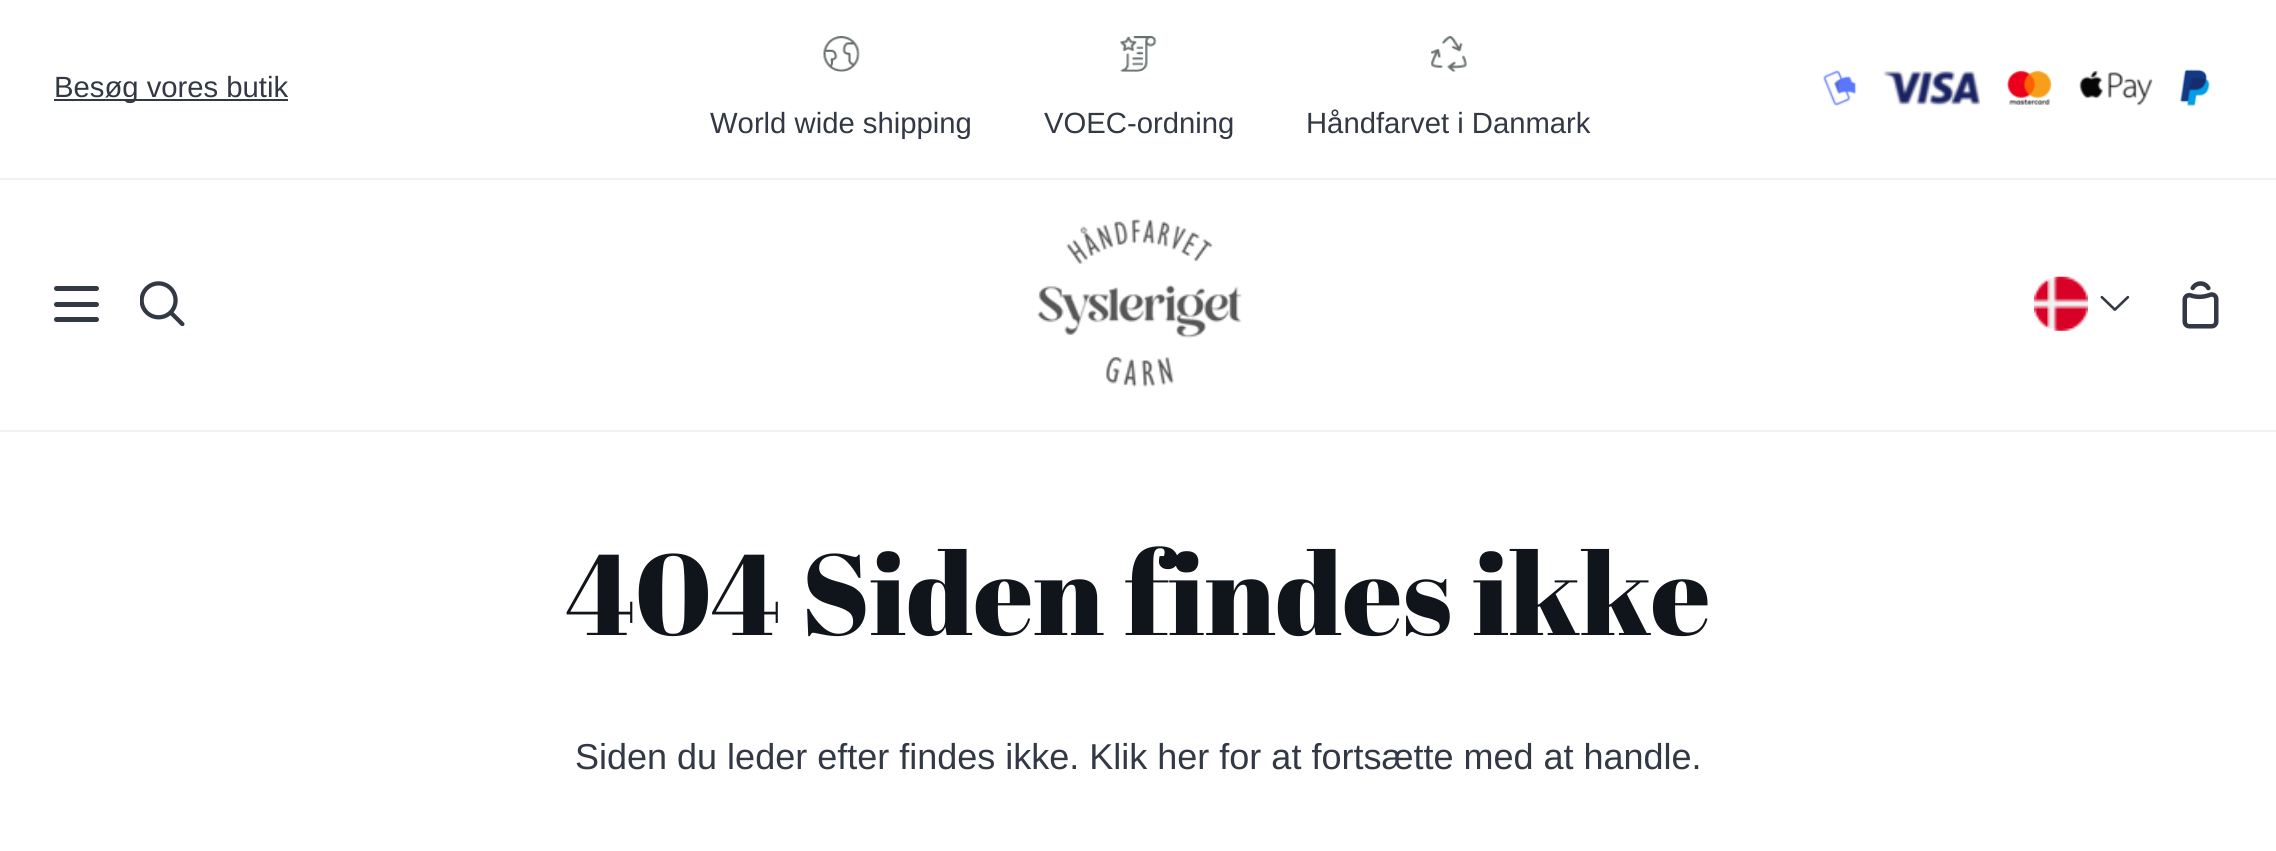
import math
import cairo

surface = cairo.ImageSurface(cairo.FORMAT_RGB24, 2276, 851)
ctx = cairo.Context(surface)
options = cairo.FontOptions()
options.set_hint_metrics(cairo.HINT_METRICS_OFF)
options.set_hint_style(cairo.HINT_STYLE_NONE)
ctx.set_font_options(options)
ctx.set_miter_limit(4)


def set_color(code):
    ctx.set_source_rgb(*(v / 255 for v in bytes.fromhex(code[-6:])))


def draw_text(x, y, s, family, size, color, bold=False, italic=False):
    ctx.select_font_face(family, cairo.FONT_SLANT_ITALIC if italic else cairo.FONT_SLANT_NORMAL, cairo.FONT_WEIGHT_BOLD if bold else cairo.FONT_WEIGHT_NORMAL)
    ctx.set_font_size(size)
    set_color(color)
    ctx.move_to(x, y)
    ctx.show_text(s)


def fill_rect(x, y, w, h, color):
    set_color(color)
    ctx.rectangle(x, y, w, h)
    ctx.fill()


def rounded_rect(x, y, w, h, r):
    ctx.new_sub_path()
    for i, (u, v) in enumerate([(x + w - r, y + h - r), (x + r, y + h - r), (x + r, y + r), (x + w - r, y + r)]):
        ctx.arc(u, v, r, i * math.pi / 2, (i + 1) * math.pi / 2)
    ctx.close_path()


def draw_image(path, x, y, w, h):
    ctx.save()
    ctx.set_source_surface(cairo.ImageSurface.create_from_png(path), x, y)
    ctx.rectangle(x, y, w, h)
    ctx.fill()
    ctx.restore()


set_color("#ffffff")
ctx.paint()
fill_rect(0, 430, 2276, 2, "#f2f2f2")
fill_rect(0, 178, 2276, 2, "#f2f2f2")
fill_rect(54, 99, 234, 2, "#323945")
draw_text(54, 97, "Besøg vores butik", "Arimo", 29.25, "#323945")
draw_image("assets/img1.png", 1823, 70, 34, 36)
draw_image("assets/img2.png", 1883, 70, 97, 36)
draw_image("assets/img3.png", 2007, 70, 45, 35)
draw_image("assets/img4.png", 2079, 70, 74, 36)
draw_image("assets/img5.png", 2180, 69, 30, 37)
draw_image("assets/img6.png", 823, 36, 37, 36)
draw_text(710, 133, "World wide shipping", "Arimo", 29.25, "#323945")
draw_image("assets/img7.png", 1120, 36, 37, 36)
draw_text(1044, 133, "VOEC-ordning", "Arimo", 29.25, "#323945")
draw_image("assets/img8.png", 1431, 36, 36, 36)
draw_text(1306, 133, "Håndfarvet i Danmark", "Arimo", 29.25, "#323945")
rounded_rect(54, 286, 45, 5, 2.5)
ctx.fill()
rounded_rect(54, 302, 45, 5, 2.5)
ctx.fill()
rounded_rect(54, 317, 45, 5, 2.5)
ctx.fill()
draw_image("assets/img9.png", 140, 281, 45, 45)
draw_image("assets/img10.png", 1037, 218, 205, 169)
draw_image("assets/img11.png", 2034, 276, 54, 55)
draw_image("assets/img12.png", 2100, 295, 30, 16)
draw_image("assets/img13.png", 2182, 281, 37, 48)
draw_text(566, 635, "404 Siden findes ikke", "Abril Fatface", 114.75, "#10141b")
draw_text(575, 769, "Siden du leder efter findes ikke. Klik her for at fortsætte med at handle.", "Arimo", 36, "#323945")
surface.write_to_png("output.png")
